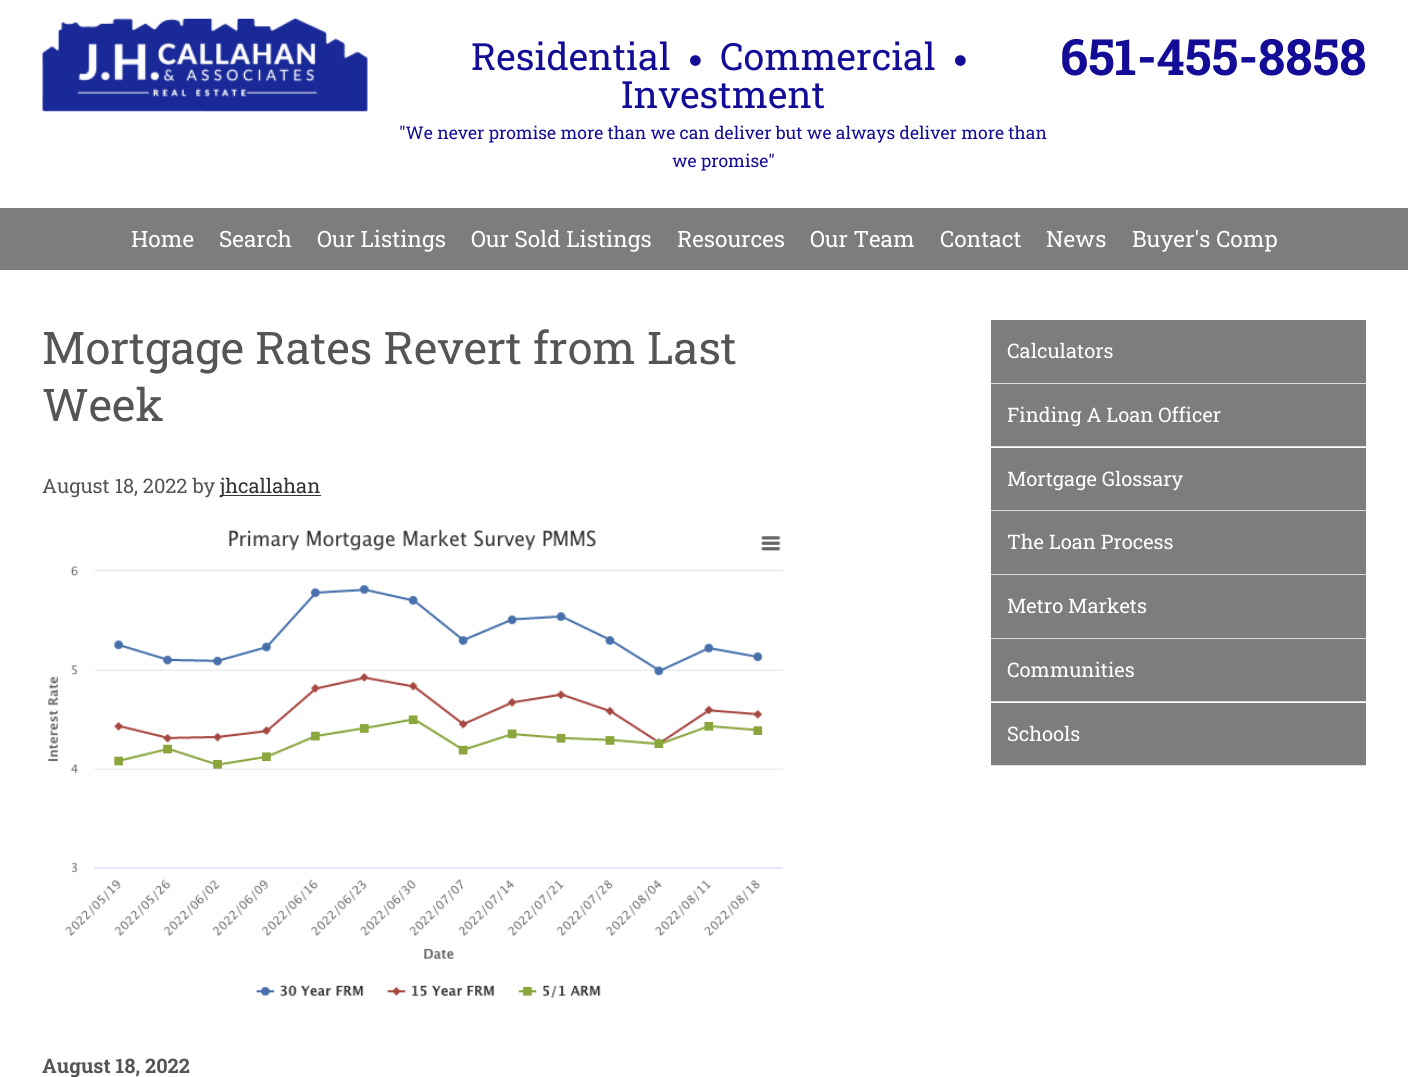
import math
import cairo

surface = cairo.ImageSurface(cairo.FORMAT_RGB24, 1408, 1077)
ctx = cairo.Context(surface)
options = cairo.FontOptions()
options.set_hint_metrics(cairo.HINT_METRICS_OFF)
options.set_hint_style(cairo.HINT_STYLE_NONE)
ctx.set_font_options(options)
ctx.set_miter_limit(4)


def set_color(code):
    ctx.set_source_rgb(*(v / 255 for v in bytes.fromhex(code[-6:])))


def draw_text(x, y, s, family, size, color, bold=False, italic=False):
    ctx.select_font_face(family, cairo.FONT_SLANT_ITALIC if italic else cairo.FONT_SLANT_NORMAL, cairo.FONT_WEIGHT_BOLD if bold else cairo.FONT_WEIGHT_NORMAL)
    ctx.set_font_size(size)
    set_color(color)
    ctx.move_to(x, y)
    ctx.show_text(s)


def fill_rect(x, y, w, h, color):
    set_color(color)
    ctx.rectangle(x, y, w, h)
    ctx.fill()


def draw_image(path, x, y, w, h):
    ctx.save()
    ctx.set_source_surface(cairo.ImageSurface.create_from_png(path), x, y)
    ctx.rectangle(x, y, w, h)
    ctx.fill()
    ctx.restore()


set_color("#ffffff")
ctx.paint()
draw_image("assets/img1.png", 42, 18, 326, 94)
draw_text(471, 70, "Residential", "Roboto Slab", 37.5, "#130c96")
draw_image("assets/img2.png", 690, 55, 11, 11)
draw_text(720, 70, "Commercial", "Roboto Slab", 37.5, "#130c96")
draw_image("assets/img2.png", 955, 55, 11, 11)
draw_text(621, 108, "Investment", "Roboto Slab", 37.5, "#130c96")
draw_text(399, 139, "\"We never promise more than we can deliver but we always deliver more than", "Roboto Slab", 17.5, "#130c96")
draw_text(672, 167, "we promise\"", "Roboto Slab", 17.5, "#130c96")
draw_text(1060, 75, "651-455-8858", "Roboto Slab", 50, "#130c96", bold=True)
fill_rect(0, 208, 1408, 62, "#7d7d7d")
draw_text(131, 247, "Home", "Roboto Slab", 22.5, "#ffffff")
draw_text(219, 247, "Search", "Roboto Slab", 22.5, "#ffffff")
draw_text(317, 247, "Our Listings", "Roboto Slab", 22.5, "#ffffff")
draw_text(471, 247, "Our Sold Listings", "Roboto Slab", 22.5, "#ffffff")
draw_text(677, 247, "Resources", "Roboto Slab", 22.5, "#ffffff")
draw_text(810, 247, "Our Team", "Roboto Slab", 22.5, "#ffffff")
draw_text(940, 247, "Contact", "Roboto Slab", 22.5, "#ffffff")
draw_text(1046, 247, "News", "Roboto Slab", 22.5, "#ffffff")
draw_text(1132, 247, "Buyer's Comp", "Roboto Slab", 22.5, "#ffffff")
draw_text(42, 364, "Mortgage Rates Revert from Last", "Roboto Slab", 45, "#555555")
draw_text(42, 421, "Week", "Roboto Slab", 45, "#555555")
draw_text(42, 493, "August 18, 2022 by", "Roboto Slab", 20, "#555555")
fill_rect(220, 495, 101, 1, "#333333")
draw_text(220, 493, "jhcallahan", "Roboto Slab", 20, "#333333")
draw_image("assets/img3.png", 47, 529, 736, 469)
draw_text(42, 1073, "August 18, 2022", "Roboto Slab", 20, "#555555", bold=True)
fill_rect(991, 383, 375, 1, "#dddddd")
fill_rect(991, 320, 375, 63, "#7d7d7d")
draw_text(1007, 358, "Calculators", "Roboto Slab", 20, "#ffffff")
fill_rect(991, 446, 375, 1, "#dddddd")
fill_rect(991, 384, 375, 62, "#7d7d7d")
draw_text(1007, 422, "Finding A Loan Officer", "Roboto Slab", 20, "#ffffff")
fill_rect(991, 510, 375, 1, "#dddddd")
fill_rect(991, 448, 375, 62, "#7d7d7d")
draw_text(1007, 486, "Mortgage Glossary", "Roboto Slab", 20, "#ffffff")
fill_rect(991, 574, 375, 1, "#dddddd")
fill_rect(991, 511, 375, 63, "#7d7d7d")
draw_text(1007, 549, "The Loan Process", "Roboto Slab", 20, "#ffffff")
fill_rect(991, 638, 375, 1, "#dddddd")
fill_rect(991, 575, 375, 63, "#7d7d7d")
draw_text(1007, 613, "Metro Markets", "Roboto Slab", 20, "#ffffff")
fill_rect(991, 701, 375, 1, "#dddddd")
fill_rect(991, 639, 375, 62, "#7d7d7d")
draw_text(1007, 677, "Communities", "Roboto Slab", 20, "#ffffff")
fill_rect(991, 765, 375, 1, "#dddddd")
fill_rect(991, 703, 375, 62, "#7d7d7d")
draw_text(1007, 741, "Schools", "Roboto Slab", 20, "#ffffff")
surface.write_to_png("output.png")
